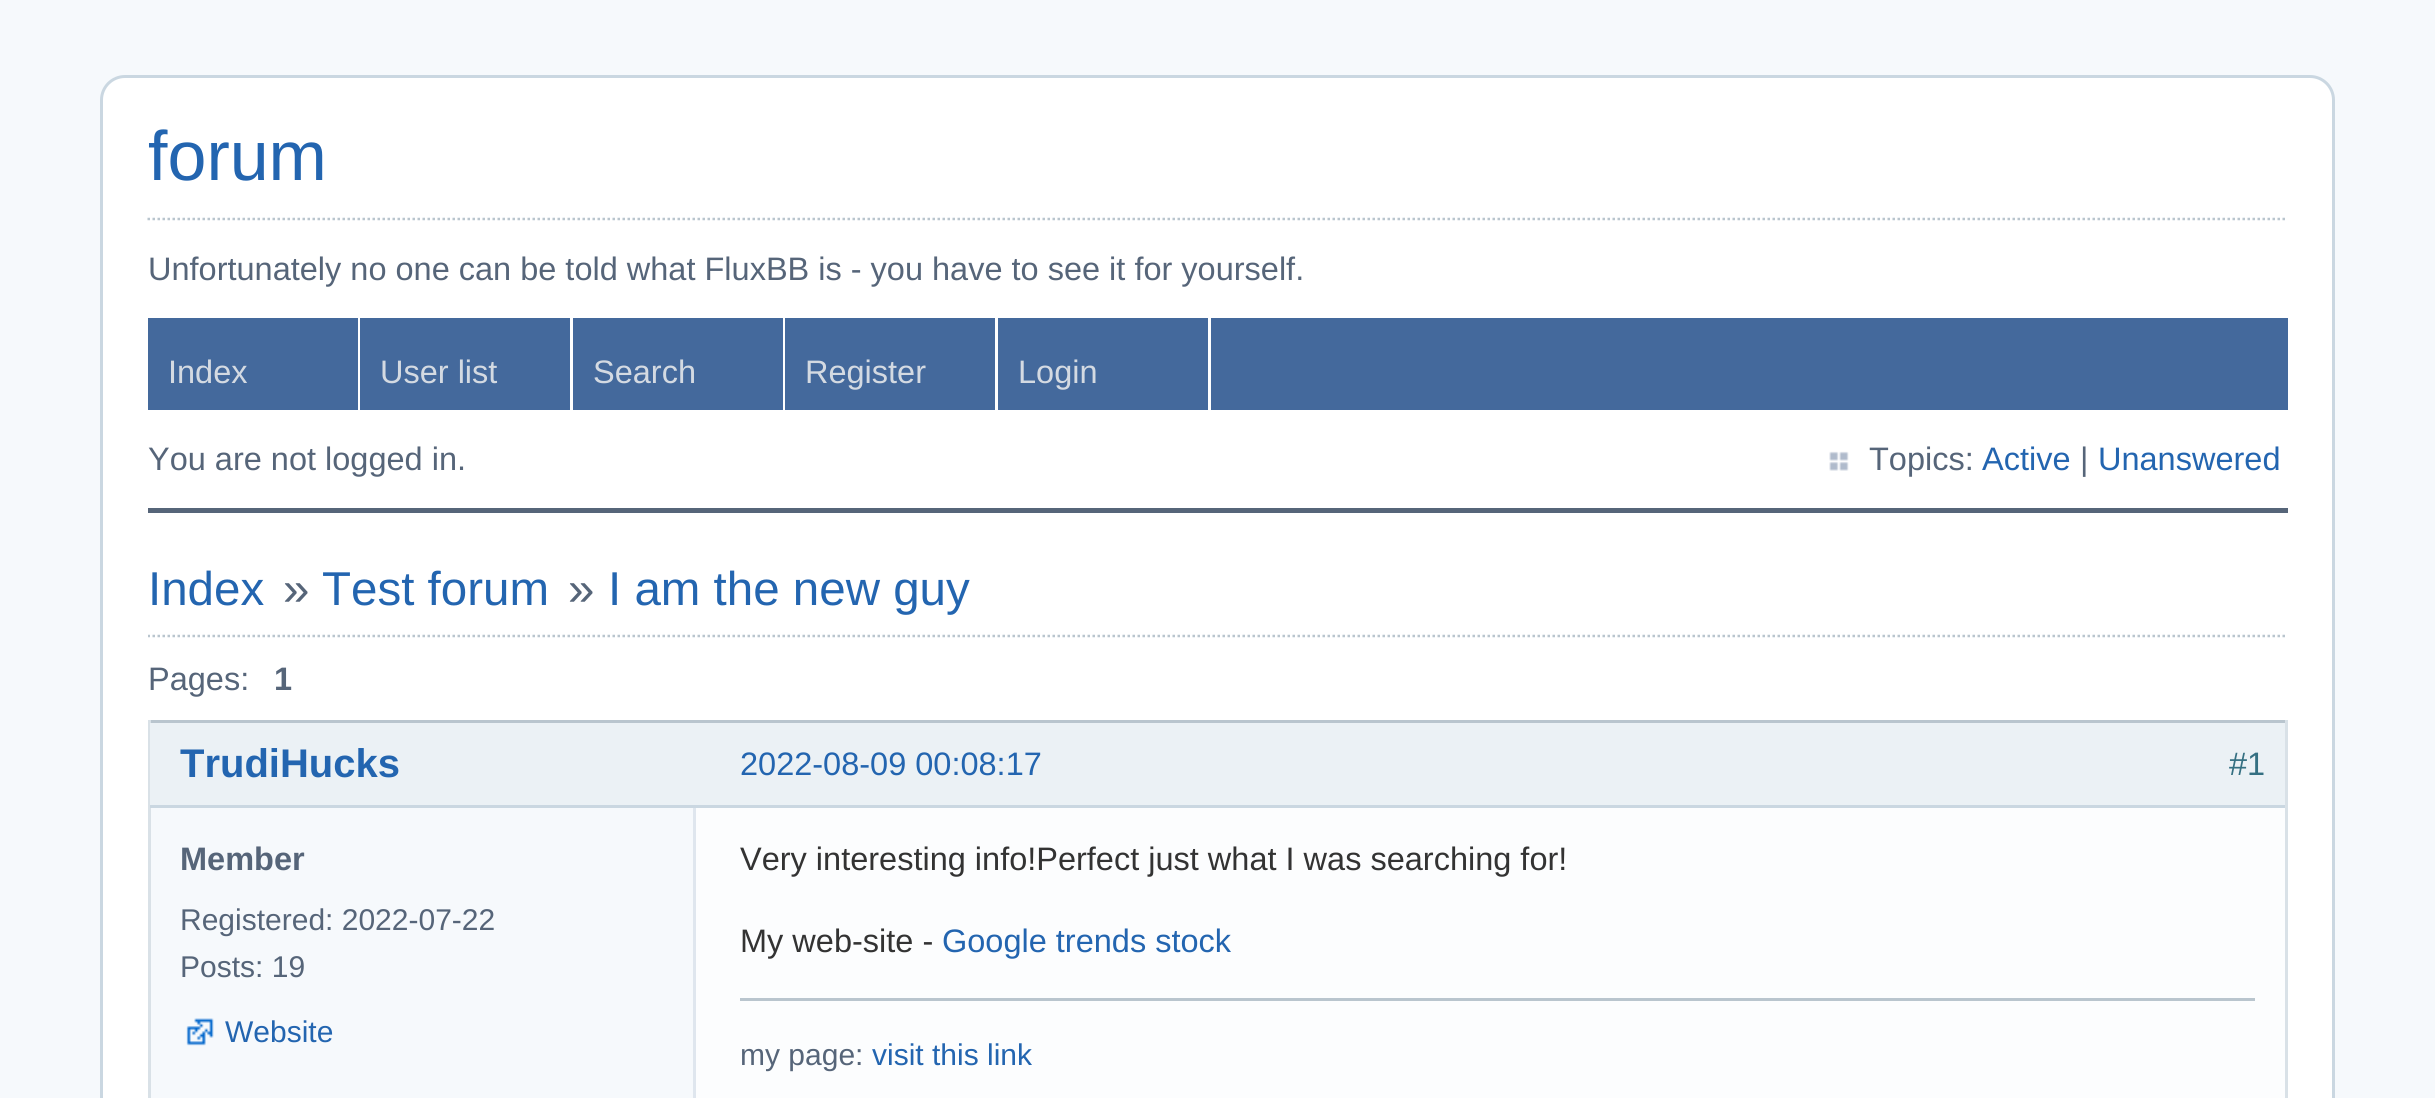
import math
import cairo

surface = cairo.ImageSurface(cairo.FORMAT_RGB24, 2435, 1098)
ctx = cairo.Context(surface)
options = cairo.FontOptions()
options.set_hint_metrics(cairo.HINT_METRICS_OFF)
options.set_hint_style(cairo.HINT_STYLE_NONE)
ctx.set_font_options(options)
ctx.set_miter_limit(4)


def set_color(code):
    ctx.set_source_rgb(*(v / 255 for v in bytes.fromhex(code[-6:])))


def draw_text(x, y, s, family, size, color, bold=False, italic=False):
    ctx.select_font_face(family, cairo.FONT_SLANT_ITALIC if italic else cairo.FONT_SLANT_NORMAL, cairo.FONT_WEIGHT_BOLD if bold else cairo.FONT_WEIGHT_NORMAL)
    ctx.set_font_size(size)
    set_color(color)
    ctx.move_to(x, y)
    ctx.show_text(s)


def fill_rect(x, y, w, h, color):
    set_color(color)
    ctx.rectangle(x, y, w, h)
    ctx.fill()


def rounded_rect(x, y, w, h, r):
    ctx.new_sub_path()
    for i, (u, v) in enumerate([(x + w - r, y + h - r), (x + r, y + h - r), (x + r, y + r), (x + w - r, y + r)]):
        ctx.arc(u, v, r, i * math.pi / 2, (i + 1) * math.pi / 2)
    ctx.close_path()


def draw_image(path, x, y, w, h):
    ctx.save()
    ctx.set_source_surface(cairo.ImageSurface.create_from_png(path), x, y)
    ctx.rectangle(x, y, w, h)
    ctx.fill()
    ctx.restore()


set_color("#f6f9fc")
ctx.paint()
set_color("#ffffff")
rounded_rect(101.5, 76.5, 2232, 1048, 23.5)
ctx.fill_preserve()
set_color("#cad7e1")
ctx.set_line_width(3)
ctx.stroke()
draw_text(148, 180, "forum", "Liberation Sans", 70, "#2365b0")
ctx.new_path()
ctx.move_to(147.5, 219)
ctx.line_to(2287.5, 219)
set_color("#b9c5ce")
ctx.set_line_width(2.5)
ctx.set_dash([2.5, 2.5])
ctx.stroke()
draw_text(148, 280, "Unfortunately no one can be told what FluxBB is - you have to see it for yourself.", "Liberation Sans", 32.5, "#566579")
fill_rect(148, 318, 2140, 92, "#44699c")
fill_rect(358, 318, 2, 92, "#ffffff")
draw_text(168, 383, "Index", "Liberation Sans", 32.5, "#d4dae2")
fill_rect(570, 318, 3, 92, "#ffffff")
draw_text(380, 383, "User list", "Liberation Sans", 32.5, "#d4dae2")
fill_rect(783, 318, 2, 92, "#ffffff")
draw_text(593, 383, "Search", "Liberation Sans", 32.5, "#d4dae2")
fill_rect(995, 318, 3, 92, "#ffffff")
draw_text(805, 383, "Register", "Liberation Sans", 32.5, "#d4dae2")
fill_rect(1208, 318, 3, 92, "#ffffff")
draw_text(1018, 383, "Login", "Liberation Sans", 32.5, "#d4dae2")
draw_text(148, 470, "You are not logged in.", "Liberation Sans", 32.5, "#566579")
draw_image("assets/img1.png", 1829, 451, 20, 20)
draw_text(1869, 470, "Topics:", "Liberation Sans", 32.5, "#566579")
draw_text(1982, 470, "Active", "Liberation Sans", 32.5, "#2365b0")
draw_text(2080, 470, "|", "Liberation Sans", 32.5, "#566579")
draw_text(2098, 470, "Unanswered", "Liberation Sans", 32.5, "#2365b0")
fill_rect(148, 508, 2140, 5, "#566579")
draw_text(148, 605, "Index", "Liberation Sans", 47.5, "#2365b0")
draw_text(283, 605, "»", "Liberation Sans", 47.5, "#566579")
draw_text(322, 605, "Test forum", "Liberation Sans", 47.5, "#2365b0")
draw_text(568, 605, "»", "Liberation Sans", 47.5, "#566579")
draw_text(608, 605, "I am the new guy", "Liberation Sans", 47.5, "#2365b0")
ctx.save()
ctx.rectangle(148, 543, 2140, 177)
ctx.clip()
ctx.new_path()
ctx.move_to(147.5, 636)
ctx.line_to(2287.5, 636)
set_color("#b9c5ce")
ctx.stroke()
ctx.restore()
draw_text(148, 690, "Pages:", "Liberation Sans", 32.5, "#566579")
draw_text(274, 690, "1", "Liberation Sans", 32.5, "#566579", bold=True)
fill_rect(151, 808, 542, 290, "#f6f9fc")
fill_rect(148, 720, 2140, 3, "#b9c5ce")
fill_rect(2285, 720, 3, 378, "#d9e1e7")
fill_rect(148, 720, 3, 378, "#d9e1e7")
fill_rect(696, 808, 1589, 290, "#fcfdfe")
fill_rect(693, 808, 3, 290, "#dfe6ee")
fill_rect(150, 723, 2135, 82, "#ebf1f5")
draw_text(180, 777, "TrudiHucks", "Liberation Sans", 40, "#2365b0", bold=True)
draw_text(180, 870, "Member", "Liberation Sans", 32.5, "#566579", bold=True)
draw_text(180, 930, "Registered: 2022-07-22", "Liberation Sans", 30, "#566579")
draw_text(180, 977, "Posts: 19", "Liberation Sans", 30, "#566579")
draw_image("assets/img2.png", 186, 1018, 28, 28)
draw_text(225, 1042, "Website", "Liberation Sans", 30, "#2365b0")
draw_text(740, 870, "Very interesting info!Perfect just what I was searching for!", "Liberation Sans", 32.5, "#333333")
draw_text(740, 952, "My web-site -", "Liberation Sans", 32.5, "#333333")
draw_text(942, 952, "Google trends stock", "Liberation Sans", 32.5, "#2365b0")
fill_rect(740, 998, 1515, 3, "#b9c5ce")
draw_text(740, 1065, "my page:", "Liberation Sans", 30, "#566579")
draw_text(872, 1065, "visit this link", "Liberation Sans", 30, "#2365b0")
fill_rect(150, 805, 2135, 3, "#cad7e1")
draw_text(740, 775, "2022-08-09 00:08:17", "Liberation Sans", 32.5, "#2365b0")
draw_text(2229, 775, "#1", "Liberation Sans", 32.5, "#357082")
surface.write_to_png("output.png")
